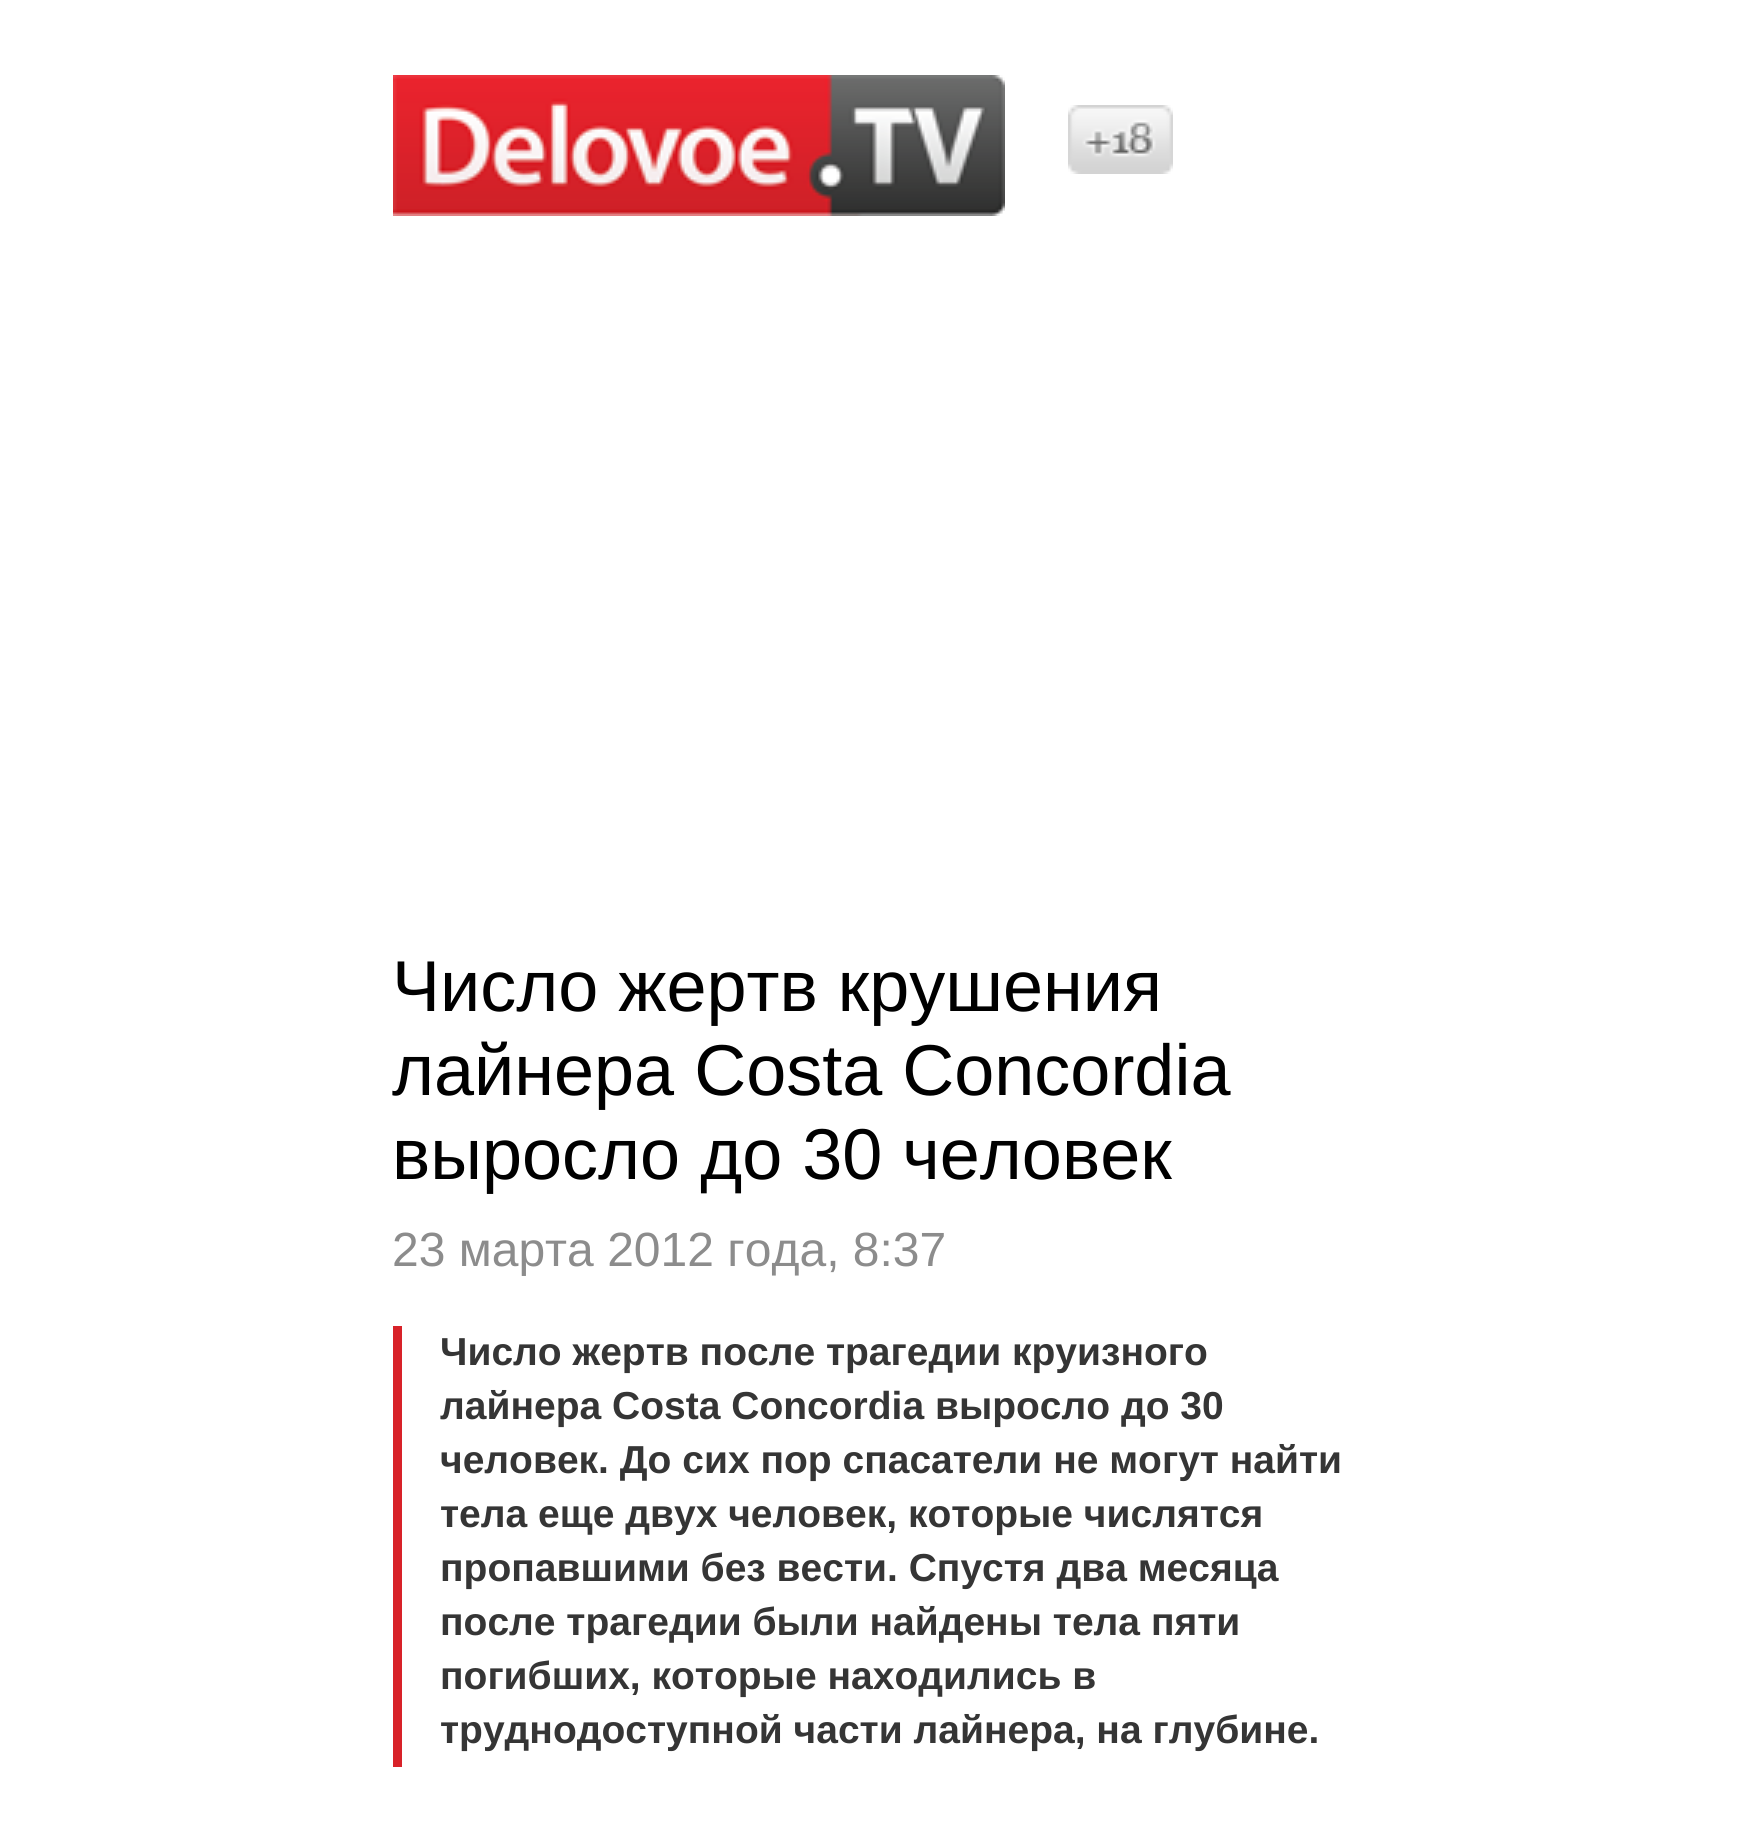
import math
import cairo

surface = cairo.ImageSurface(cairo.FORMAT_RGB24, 1742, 1828)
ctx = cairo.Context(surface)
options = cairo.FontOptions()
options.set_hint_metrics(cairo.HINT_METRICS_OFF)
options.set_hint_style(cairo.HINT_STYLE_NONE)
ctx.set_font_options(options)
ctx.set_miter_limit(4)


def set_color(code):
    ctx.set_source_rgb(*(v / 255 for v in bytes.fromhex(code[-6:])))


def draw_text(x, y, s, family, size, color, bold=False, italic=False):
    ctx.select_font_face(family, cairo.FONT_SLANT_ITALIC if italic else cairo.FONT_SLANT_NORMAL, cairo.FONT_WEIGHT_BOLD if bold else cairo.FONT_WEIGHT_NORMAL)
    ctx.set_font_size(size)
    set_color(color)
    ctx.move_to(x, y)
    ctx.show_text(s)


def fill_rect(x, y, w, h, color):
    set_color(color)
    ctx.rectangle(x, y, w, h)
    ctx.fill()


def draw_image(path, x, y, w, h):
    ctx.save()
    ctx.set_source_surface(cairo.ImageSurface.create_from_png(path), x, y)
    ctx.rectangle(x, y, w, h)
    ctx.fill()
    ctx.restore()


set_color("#ffffff")
ctx.paint()
draw_image("assets/img1.png", 393, 75, 612, 141)
draw_image("assets/img2.png", 1068, 105, 105, 69)
draw_text(392, 1011, "Число жертв крушения", "Liberation Sans", 72, "#000000")
draw_text(392, 1095, "лайнера Costa Concordia", "Liberation Sans", 72, "#000000")
draw_text(392, 1179, "выросло до 30 человек", "Liberation Sans", 72, "#000000")
draw_text(392, 1266, "23 марта 2012 года, 8:37", "Liberation Sans", 48, "#8c8c8c")
fill_rect(393, 1326, 9, 441, "#d82229")
draw_text(440, 1365, "Число жертв после трагедии круизного", "Liberation Sans", 39, "#353535", bold=True)
draw_text(440, 1419, "лайнера Costa Concordia выросло до 30", "Liberation Sans", 39, "#353535", bold=True)
draw_text(440, 1473, "человек. До сих пор спасатели не могут найти", "Liberation Sans", 39, "#353535", bold=True)
draw_text(440, 1527, "тела еще двух человек, которые числятся", "Liberation Sans", 39, "#353535", bold=True)
draw_text(440, 1581, "пропавшими без вести. Спустя два месяца", "Liberation Sans", 39, "#353535", bold=True)
draw_text(440, 1635, "после трагедии были найдены тела пяти", "Liberation Sans", 39, "#353535", bold=True)
draw_text(440, 1689, "погибших, которые находились в", "Liberation Sans", 39, "#353535", bold=True)
draw_text(440, 1743, "труднодоступной части лайнера, на глубине.", "Liberation Sans", 39, "#353535", bold=True)
surface.write_to_png("output.png")
